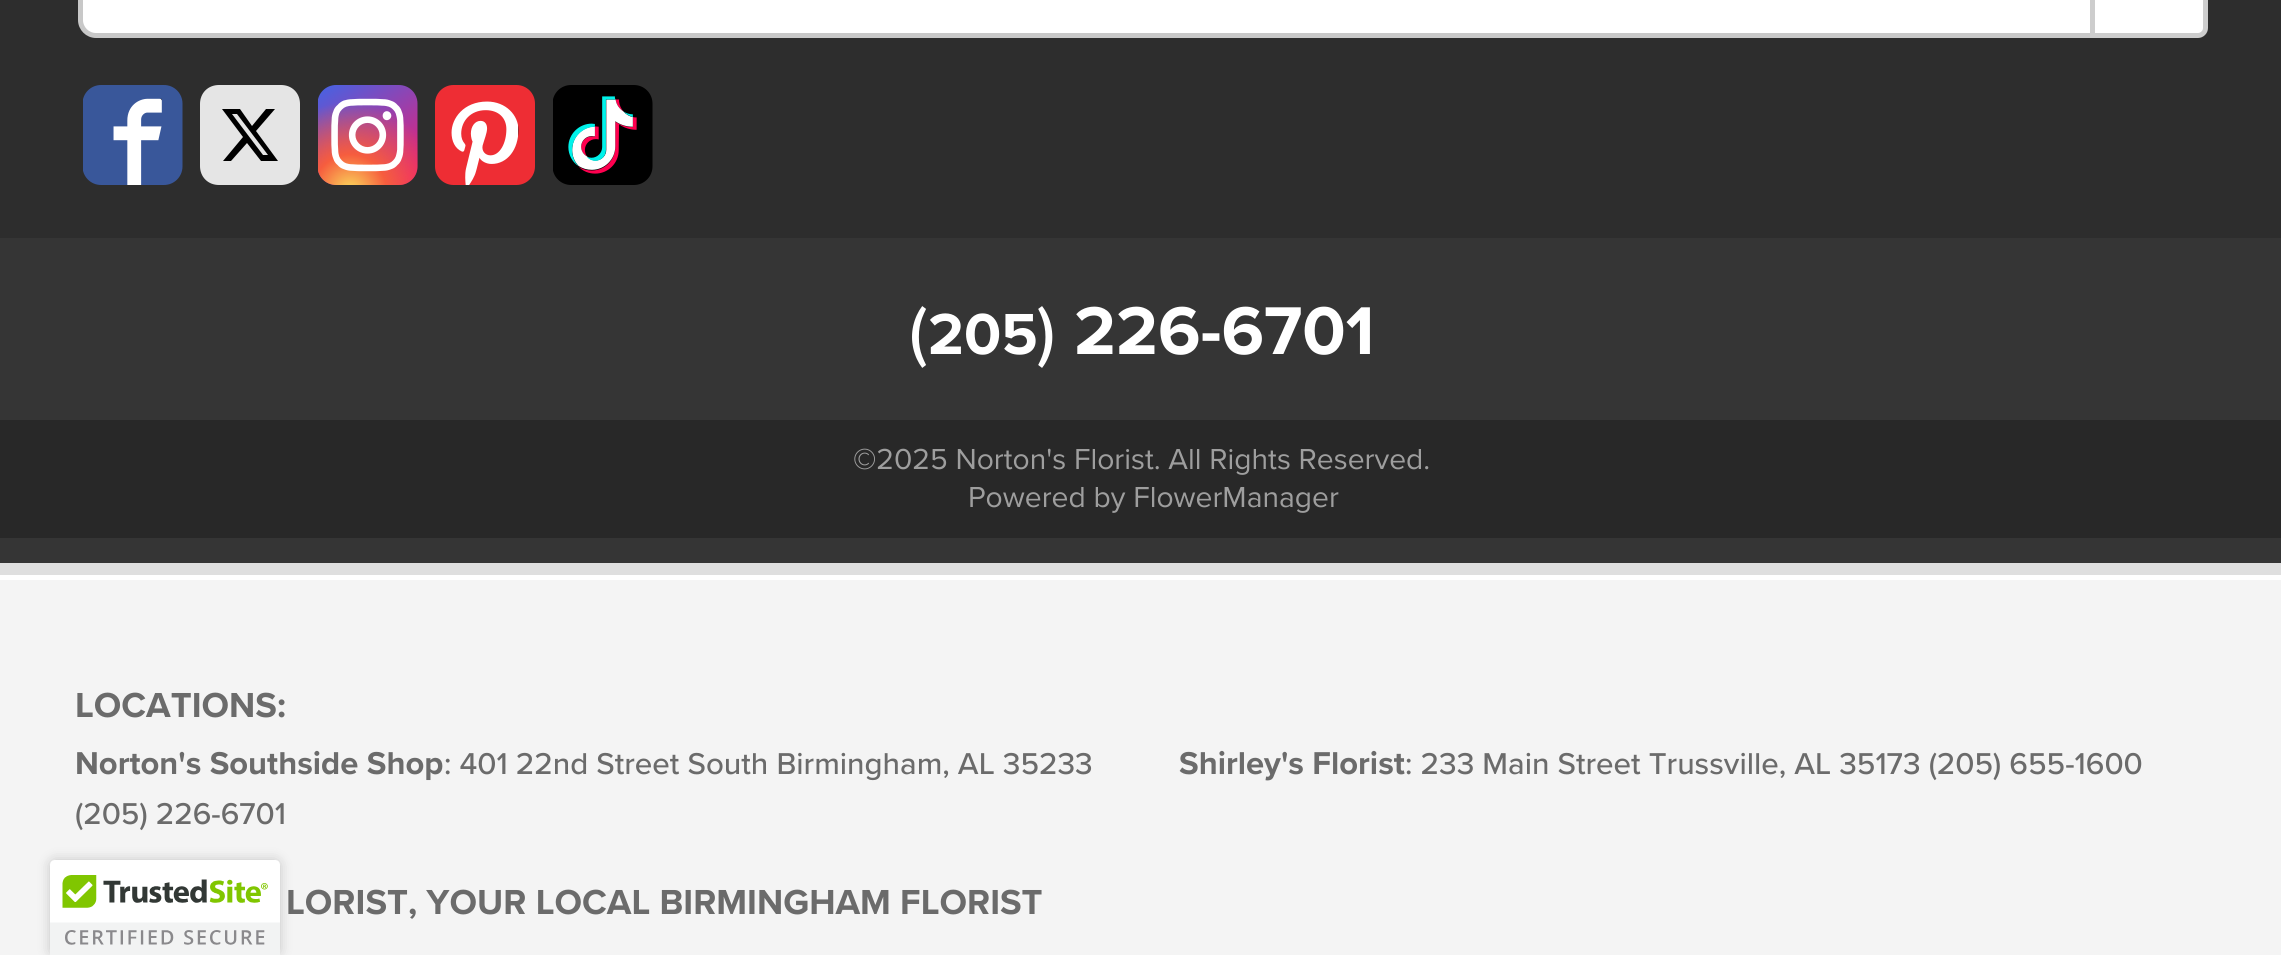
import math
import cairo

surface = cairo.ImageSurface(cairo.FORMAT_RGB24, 2281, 955)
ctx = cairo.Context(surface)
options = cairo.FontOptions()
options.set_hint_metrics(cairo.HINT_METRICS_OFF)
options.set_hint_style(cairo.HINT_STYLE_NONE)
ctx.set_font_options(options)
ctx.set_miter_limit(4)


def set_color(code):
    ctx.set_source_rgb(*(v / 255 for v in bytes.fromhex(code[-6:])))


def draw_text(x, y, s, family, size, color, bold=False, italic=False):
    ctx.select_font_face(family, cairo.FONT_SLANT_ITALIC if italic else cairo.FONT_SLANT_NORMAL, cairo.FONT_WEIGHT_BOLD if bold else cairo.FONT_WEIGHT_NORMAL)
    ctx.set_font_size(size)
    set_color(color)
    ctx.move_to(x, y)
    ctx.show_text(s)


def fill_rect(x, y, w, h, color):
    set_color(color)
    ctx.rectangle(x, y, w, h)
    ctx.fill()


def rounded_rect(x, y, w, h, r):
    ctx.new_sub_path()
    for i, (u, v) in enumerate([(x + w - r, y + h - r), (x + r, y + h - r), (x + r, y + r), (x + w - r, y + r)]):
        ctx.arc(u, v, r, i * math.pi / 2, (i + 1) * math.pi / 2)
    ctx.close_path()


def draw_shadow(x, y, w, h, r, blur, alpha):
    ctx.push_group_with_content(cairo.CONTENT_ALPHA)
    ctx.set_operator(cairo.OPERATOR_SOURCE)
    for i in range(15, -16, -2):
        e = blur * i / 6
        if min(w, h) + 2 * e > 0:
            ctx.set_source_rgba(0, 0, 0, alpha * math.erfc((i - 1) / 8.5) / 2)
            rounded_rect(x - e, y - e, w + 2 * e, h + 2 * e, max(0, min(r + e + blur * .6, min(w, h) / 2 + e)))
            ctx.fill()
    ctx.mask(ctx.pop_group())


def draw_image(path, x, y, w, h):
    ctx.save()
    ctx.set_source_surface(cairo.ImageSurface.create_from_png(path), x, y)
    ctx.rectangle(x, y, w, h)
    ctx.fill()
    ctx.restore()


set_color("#f4f4f4")
ctx.paint()
ctx.rectangle(-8, -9, 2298, 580)
set_color("#ffffff")
ctx.set_line_width(18)
ctx.stroke()
ctx.rectangle(-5.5, -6.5, 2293, 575)
set_color("#dfdfdf")
ctx.set_line_width(13)
ctx.stroke()
fill_rect(0, 238, 2281, 325, "#353535")
fill_rect(0, 0, 2281, 238, "#2d2d2d")
set_color("#ffffff")
ctx.new_path()
ctx.move_to(96, -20.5)
ctx.line_to(2092.5, -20.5)
ctx.line_to(2092.5, 35.5)
ctx.line_to(96, 35.5)
ctx.curve_to(87.5, 35.5, 80.5, 28.5, 80.5, 20)
ctx.line_to(80.5, -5)
ctx.curve_to(80.5, -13.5, 87.5, -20.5, 96, -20.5)
ctx.close_path()
ctx.fill_preserve()
set_color("#c8c8c8")
ctx.set_line_width(5)
ctx.stroke()
set_color("#ffffff")
ctx.new_path()
ctx.move_to(2092.5, -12.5)
ctx.line_to(2198, -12.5)
ctx.curve_to(2202, -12.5, 2205.5, -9, 2205.5, -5)
ctx.line_to(2205.5, 28)
ctx.curve_to(2205.5, 32, 2202, 35.5, 2198, 35.5)
ctx.line_to(2092.5, 35.5)
ctx.close_path()
ctx.fill_preserve()
set_color("#cdcdcd")
ctx.stroke()
draw_image("assets/img1.png", 83, 85, 100, 100)
set_color("#e5e5e5")
ctx.new_path()
ctx.move_to(300, 104)
ctx.line_to(300, 166)
ctx.curve_to(300, 177, 292, 185, 281, 185)
ctx.line_to(219, 185)
ctx.curve_to(208, 185, 200, 177, 200, 166)
ctx.line_to(200, 104)
ctx.curve_to(200, 93, 208, 85, 219, 85)
ctx.line_to(281, 85)
ctx.curve_to(292, 85, 300, 93, 300, 104)
ctx.close_path()
ctx.fill()
set_color("#000000")
ctx.new_path()
ctx.move_to(266, 109)
ctx.line_to(275, 109)
ctx.line_to(256, 131)
ctx.line_to(278, 161)
ctx.line_to(261, 161)
ctx.line_to(247, 143)
ctx.line_to(231, 161)
ctx.line_to(223, 161)
ctx.line_to(243, 137)
ctx.line_to(222, 109)
ctx.line_to(240, 109)
ctx.line_to(252, 126)
ctx.close_path()
ctx.move_to(263, 155)
ctx.line_to(268, 155)
ctx.line_to(237, 114)
ctx.line_to(232, 114)
ctx.close_path()
ctx.fill()
draw_image("assets/img2.png", 318, 85, 100, 100)
draw_image("assets/img3.png", 435, 85, 100, 100)
draw_image("assets/img4.png", 553, 85, 100, 100)
draw_text(909, 354, "(", "Proxima Nova Medium", 70, "#ffffff")
draw_text(928, 354, "205", "Proxima Nova", 60, "#ffffff", bold=True)
draw_text(1037, 354, ")", "Proxima Nova Medium", 70, "#ffffff")
draw_text(1074, 354, "226-6701", "Proxima Nova", 70, "#ffffff", bold=True)
fill_rect(0, 420, 2281, 118, "#282828")
draw_text(853, 469, "©2025 Norton's Florist. All Rights Reserved.", "Proxima Nova", 30, "#9e9e9e")
draw_text(968, 507, "Powered by FlowerManager", "Proxima Nova", 30, "#9e9e9e")
draw_text(75, 717, "LOCATIONS:", "Proxima Nova", 36, "#6b6b6b", bold=True)
draw_text(75, 774, "Norton's Southside Shop", "Proxima Nova", 32.75, "#6b6b6b", bold=True)
draw_text(444, 774, ": 401 22nd Street South Birmingham, AL 35233", "Proxima Nova Medium", 31.25, "#6b6b6b")
draw_text(75, 824, "(205) 226-6701", "Proxima Nova Medium", 31.25, "#6b6b6b")
draw_text(1179, 774, "Shirley's Florist", "Proxima Nova", 32.75, "#6b6b6b", bold=True)
draw_text(1405, 774, ": 233 Main Street Trussville, AL 35173 (205) 655-1600", "Proxima Nova Medium", 31.25, "#6b6b6b")
draw_text(286, 914, "LORIST, YOUR LOCAL BIRMINGHAM FLORIST", "Proxima Nova", 36, "#6b6b6b", bold=True)
set_color("#000000")
draw_shadow(50, 860, 230, 95, 5, 6, 0.2)
set_color("#ffffff")
ctx.new_path()
ctx.move_to(55, 860)
ctx.line_to(275, 860)
ctx.curve_to(278, 860, 280, 862, 280, 865)
ctx.line_to(280, 955)
ctx.line_to(50, 955)
ctx.line_to(50, 865)
ctx.curve_to(50, 862, 52, 860, 55, 860)
ctx.close_path()
ctx.fill()
draw_image("assets/img5.png", 50, 875, 230, 80)
surface.write_to_png("output.png")
